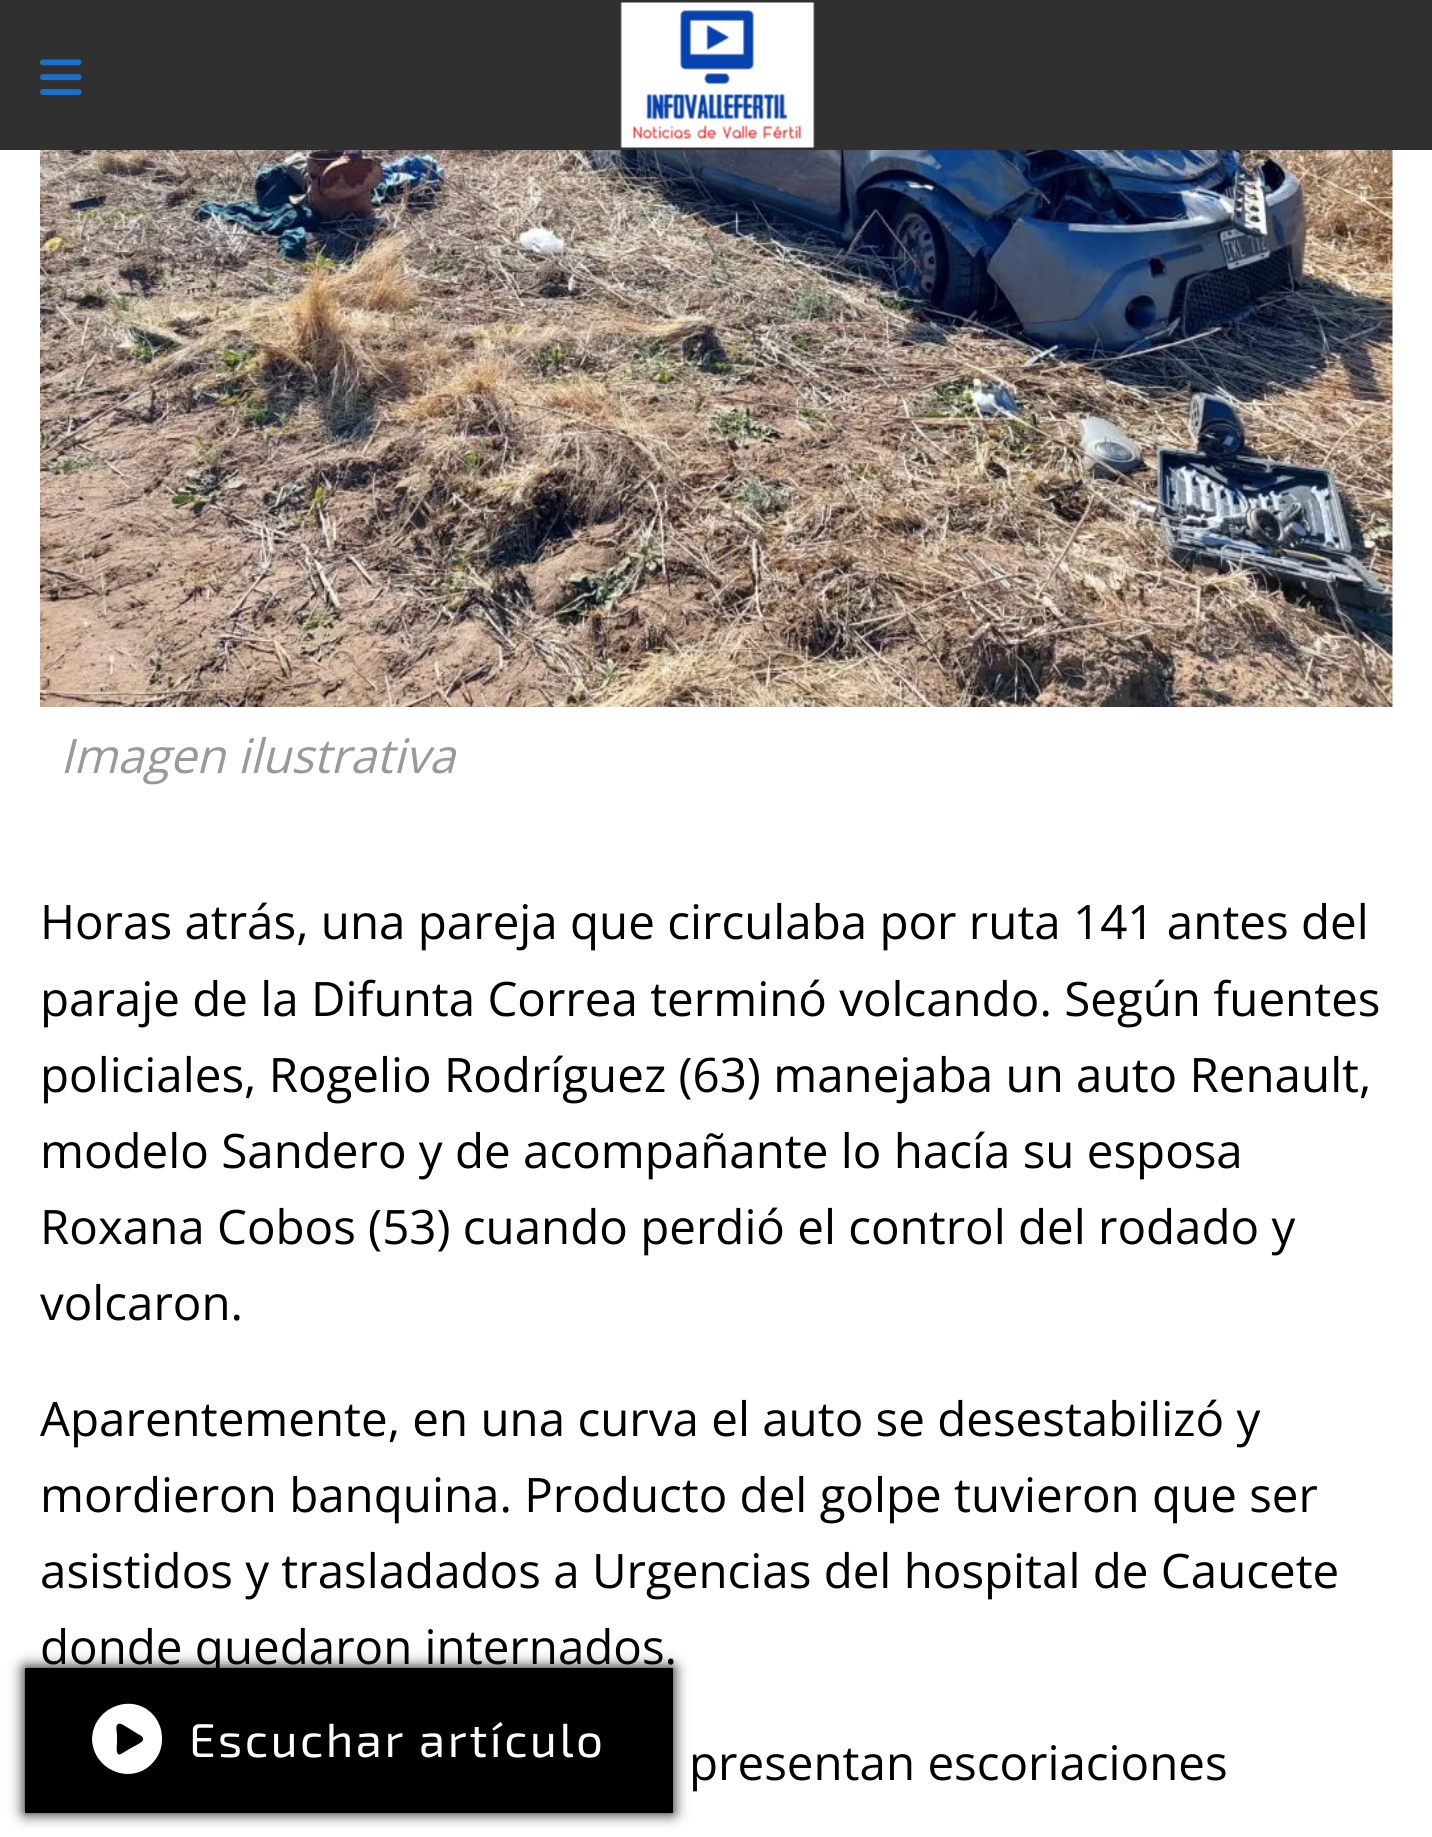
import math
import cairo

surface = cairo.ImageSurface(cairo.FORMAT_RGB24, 1432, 1837)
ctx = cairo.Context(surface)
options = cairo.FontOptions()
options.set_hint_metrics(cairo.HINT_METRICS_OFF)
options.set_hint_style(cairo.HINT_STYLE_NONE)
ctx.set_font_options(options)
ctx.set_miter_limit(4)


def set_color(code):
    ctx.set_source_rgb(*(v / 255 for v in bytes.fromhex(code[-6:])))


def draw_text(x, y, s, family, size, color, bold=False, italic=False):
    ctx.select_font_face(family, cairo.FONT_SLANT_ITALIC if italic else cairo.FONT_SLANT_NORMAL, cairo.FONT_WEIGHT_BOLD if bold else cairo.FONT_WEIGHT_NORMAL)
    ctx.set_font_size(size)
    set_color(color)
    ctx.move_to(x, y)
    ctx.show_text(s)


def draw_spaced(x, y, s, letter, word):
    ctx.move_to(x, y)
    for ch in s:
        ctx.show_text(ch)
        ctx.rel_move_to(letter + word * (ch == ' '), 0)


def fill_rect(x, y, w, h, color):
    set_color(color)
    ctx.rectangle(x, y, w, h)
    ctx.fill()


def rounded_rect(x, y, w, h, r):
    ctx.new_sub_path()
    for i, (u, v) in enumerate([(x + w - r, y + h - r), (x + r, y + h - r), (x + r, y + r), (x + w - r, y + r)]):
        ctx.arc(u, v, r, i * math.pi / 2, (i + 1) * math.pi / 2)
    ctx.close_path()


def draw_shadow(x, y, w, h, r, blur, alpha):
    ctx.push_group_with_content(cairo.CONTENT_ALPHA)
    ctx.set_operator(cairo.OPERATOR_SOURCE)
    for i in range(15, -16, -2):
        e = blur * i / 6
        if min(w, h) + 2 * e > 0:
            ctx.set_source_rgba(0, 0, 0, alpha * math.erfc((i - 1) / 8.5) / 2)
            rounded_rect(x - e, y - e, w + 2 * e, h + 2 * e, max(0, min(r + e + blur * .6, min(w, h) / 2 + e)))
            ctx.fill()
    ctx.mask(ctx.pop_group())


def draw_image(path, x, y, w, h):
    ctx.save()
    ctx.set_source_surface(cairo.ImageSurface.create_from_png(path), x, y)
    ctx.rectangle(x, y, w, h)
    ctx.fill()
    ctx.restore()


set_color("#ffffff")
ctx.paint()
fill_rect(0, 0, 1432, 150, "#303030")
draw_image("assets/img1.png", 40, 59, 42, 36)
draw_image("assets/img2.png", 620, 2, 195, 146)
draw_image("assets/img3.png", 40, 150, 1353, 557)
draw_text(60, 773, "Imagen ilustrativa", "Open Sans", 47.5, "#999999", italic=True)
draw_text(40, 939, "Horas atrás, una pareja que circulaba por ruta 141 antes del", "Open Sans", 47.5, "#000000")
draw_text(40, 1016, "paraje de la Difunta Correa terminó volcando. Según fuentes", "Open Sans", 47.5, "#000000")
draw_text(40, 1092, "policiales, Rogelio Rodríguez (63) manejaba un auto Renault,", "Open Sans", 47.5, "#000000")
draw_text(40, 1168, "modelo Sandero y de acompañante lo hacía su esposa", "Open Sans", 47.5, "#000000")
draw_text(40, 1244, "Roxana Cobos (53) cuando perdió el control del rodado y", "Open Sans", 47.5, "#000000")
draw_text(40, 1320, "volcaron.", "Open Sans", 47.5, "#000000")
draw_text(40, 1436, "Aparentemente, en una curva el auto se desestabilizó y", "Open Sans", 47.5, "#000000")
draw_text(40, 1512, "mordieron banquina. Producto del golpe tuvieron que ser", "Open Sans", 47.5, "#000000")
draw_text(40, 1588, "asistidos y trasladados a Urgencias del hospital de Caucete", "Open Sans", 47.5, "#000000")
draw_text(40, 1664, "donde quedaron internados.", "Open Sans", 47.5, "#000000")
draw_text(689, 1780, "presentan escoriaciones", "Open Sans", 47.5, "#000000")
set_color("#000000")
draw_shadow(25, 1668, 648, 145, 0, 7.5, 1)
fill_rect(25, 1668, 648, 145, "#000000")
set_color("#ffffff")
ctx.new_path()
ctx.move_to(92, 1739)
ctx.curve_to(93, 1706, 135, 1691, 155, 1717)
ctx.curve_to(160, 1724, 162, 1731, 162, 1739)
ctx.curve_to(162, 1746, 160, 1754, 155, 1760)
ctx.curve_to(135, 1787, 93, 1772, 92, 1739)
ctx.close_path()
ctx.move_to(118, 1724)
ctx.curve_to(115, 1726, 117, 1732, 117, 1735)
ctx.line_to(117, 1743)
ctx.curve_to(117, 1745, 115, 1757, 121, 1754)
ctx.line_to(131, 1748)
ctx.curve_to(134, 1746, 142, 1743, 143, 1740)
ctx.curve_to(144, 1737, 140, 1735, 138, 1734)
ctx.line_to(125, 1726)
ctx.curve_to(123, 1725, 121, 1723, 118, 1724)
ctx.close_path()
ctx.fill()
ctx.select_font_face("Exo 2")
draw_spaced(189, 1757, "Escuchar artículo", 2.5, 0)
surface.write_to_png("output.png")
